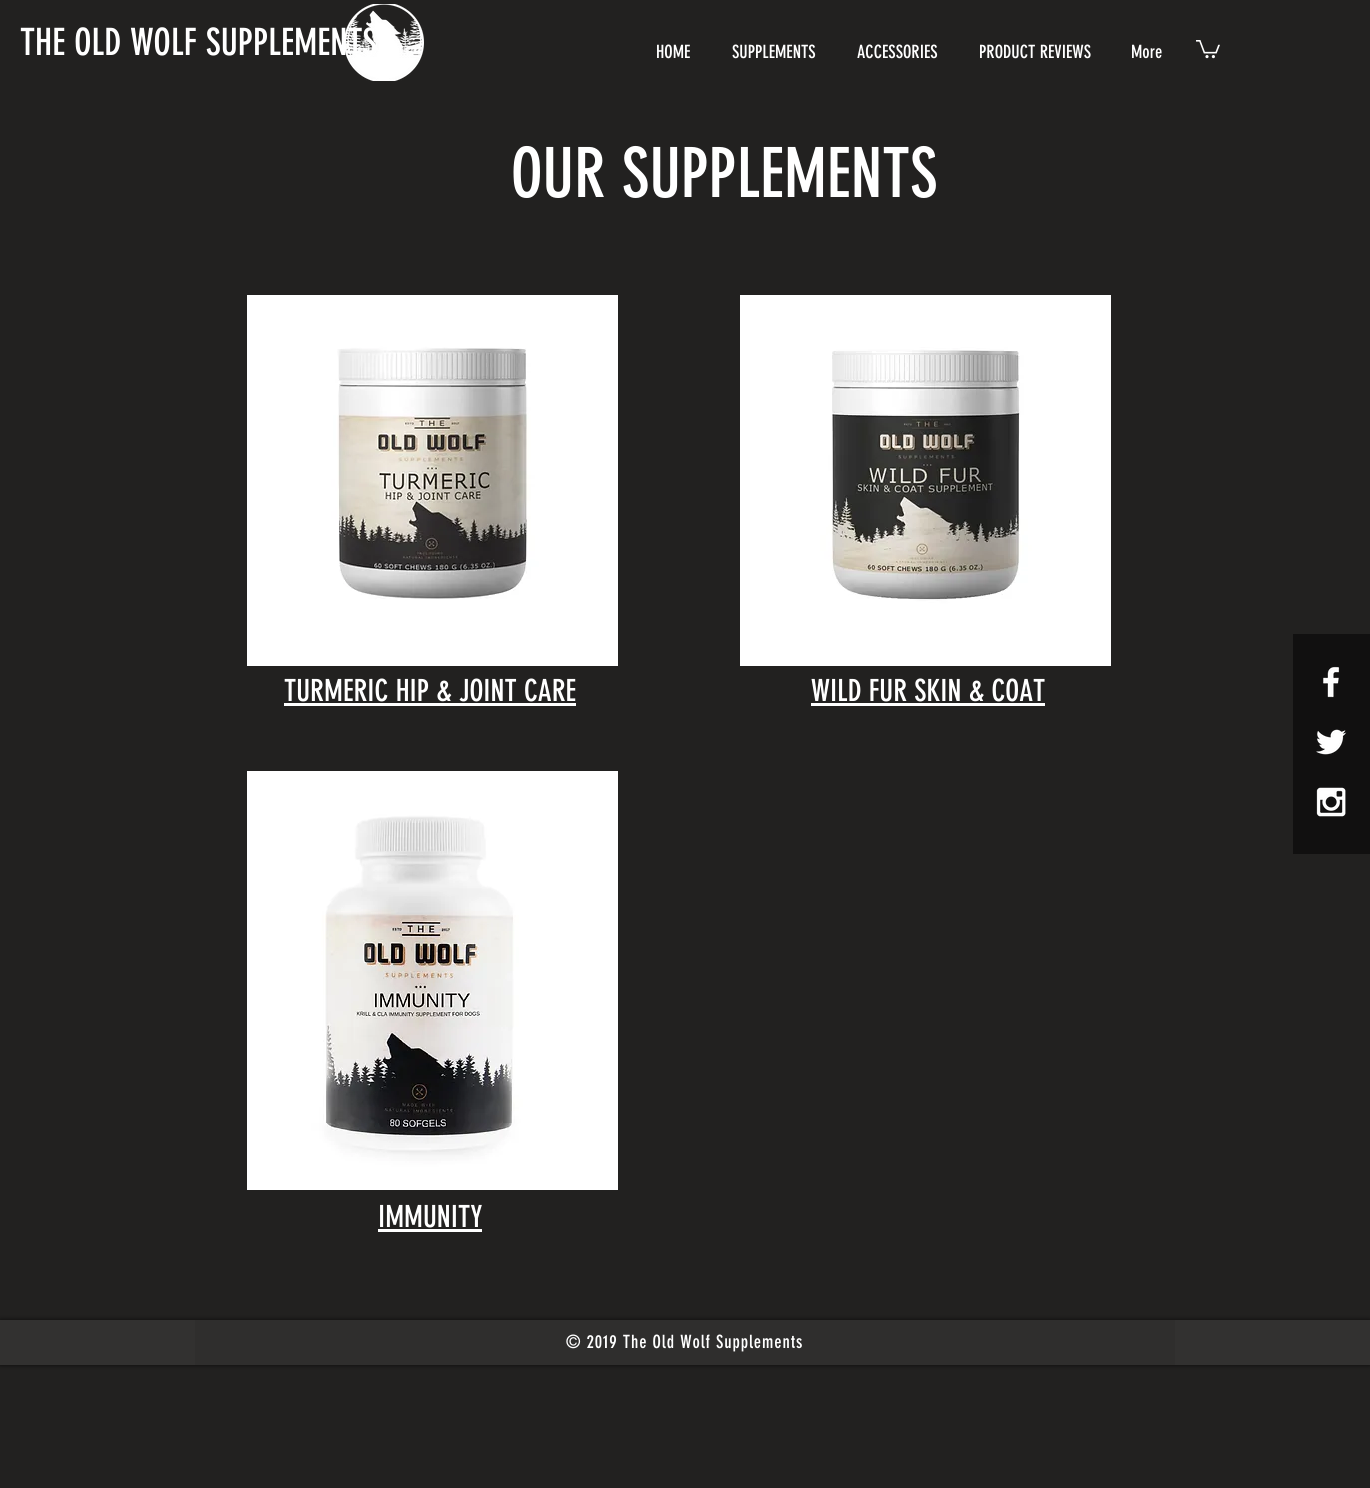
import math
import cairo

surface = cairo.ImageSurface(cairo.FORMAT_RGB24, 1370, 1488)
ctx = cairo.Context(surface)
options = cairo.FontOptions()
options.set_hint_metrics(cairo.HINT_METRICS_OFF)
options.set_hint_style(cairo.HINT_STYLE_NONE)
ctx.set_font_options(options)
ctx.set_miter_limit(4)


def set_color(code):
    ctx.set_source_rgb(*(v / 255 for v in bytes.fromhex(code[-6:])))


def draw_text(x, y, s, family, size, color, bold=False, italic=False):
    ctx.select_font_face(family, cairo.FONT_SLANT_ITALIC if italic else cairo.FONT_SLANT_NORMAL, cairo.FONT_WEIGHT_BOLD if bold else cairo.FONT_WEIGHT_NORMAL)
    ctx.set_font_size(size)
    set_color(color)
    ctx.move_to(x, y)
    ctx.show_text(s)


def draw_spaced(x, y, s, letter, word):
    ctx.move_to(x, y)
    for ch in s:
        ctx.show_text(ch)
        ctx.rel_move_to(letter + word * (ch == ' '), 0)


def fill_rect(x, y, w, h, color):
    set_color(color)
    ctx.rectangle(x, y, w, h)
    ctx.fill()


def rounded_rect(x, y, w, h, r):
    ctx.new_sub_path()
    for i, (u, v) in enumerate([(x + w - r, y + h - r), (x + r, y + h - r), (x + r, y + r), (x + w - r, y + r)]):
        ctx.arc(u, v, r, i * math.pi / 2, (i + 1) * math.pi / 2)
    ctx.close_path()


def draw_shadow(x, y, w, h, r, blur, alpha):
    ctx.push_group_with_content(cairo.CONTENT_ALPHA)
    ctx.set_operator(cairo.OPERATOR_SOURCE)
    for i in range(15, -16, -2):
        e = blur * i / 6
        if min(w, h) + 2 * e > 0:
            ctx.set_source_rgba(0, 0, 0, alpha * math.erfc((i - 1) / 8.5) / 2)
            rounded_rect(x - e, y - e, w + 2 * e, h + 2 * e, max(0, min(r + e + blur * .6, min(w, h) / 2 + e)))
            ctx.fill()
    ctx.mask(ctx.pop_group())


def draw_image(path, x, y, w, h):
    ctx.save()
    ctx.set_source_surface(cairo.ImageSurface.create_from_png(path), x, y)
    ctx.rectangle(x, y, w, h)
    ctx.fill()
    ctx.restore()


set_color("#222120")
ctx.paint()
draw_text(20, 55, "THE OLD WOLF SUPPLEMENTS", "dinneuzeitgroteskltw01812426", 37, "#ffffff")
draw_image("assets/img1.png", 345, 4, 79, 77)
draw_text(656, 58, "HOME", "dinneuzeitgroteskltw01812426", 18, "#ffffff")
draw_text(732, 58, "SUPPLEMENTS", "dinneuzeitgroteskltw01812426", 18, "#ffffff")
draw_text(857, 58, "ACCESSORIES", "dinneuzeitgroteskltw01812426", 18, "#ffffff")
draw_text(979, 58, "PRODUCT REVIEWS", "dinneuzeitgroteskltw01812426", 18, "#ffffff")
draw_text(1131, 58, "More", "dinneuzeitgroteskltw01812426", 18, "#ffffff")
draw_image("assets/img2.png", 1196, 40, 24, 19)
draw_text(511, 197, "OUR SUPPLEMENTS", "dinneuzeitgroteskltw01812426", 68, "#ffffff")
draw_image("assets/img3.png", 247, 295, 371, 371)
draw_image("assets/img4.png", 740, 295, 371, 371)
draw_text(284, 701, "TURMERIC HIP & JOINT CARE", "dinneuzeitgroteskltw01812426", 30, "#ffffff")
fill_rect(284, 703, 292, 3, "#ffffff")
draw_text(811, 701, "WILD FUR SKIN & COAT", "dinneuzeitgroteskltw01812426", 30, "#ffffff")
fill_rect(811, 703, 234, 3, "#ffffff")
draw_image("assets/img5.png", 247, 771, 371, 419)
draw_text(378, 1227, "IMMUNITY", "dinneuzeitgroteskltw01812426", 30, "#ffffff")
fill_rect(378, 1229, 104, 3, "#ffffff")
fill_rect(1293, 634, 77, 220, "#111010")
draw_image("assets/img6.png", 1323, 666, 17, 32)
draw_image("assets/img7.png", 1316, 729, 31, 26)
draw_image("assets/img8.png", 1316, 787, 30, 30)
set_color("#000000")
draw_shadow(0, 1320, 1370, 45, 0, 2.5, 0.7)
fill_rect(0, 1320, 1370, 45, "#323130")
fill_rect(195, 1320, 980, 45, "#2f2e2d")
ctx.set_font_size(18)
set_color("#ffffff")
draw_spaced(566, 1348, "© 2019 The Old Wolf Supplements", 0.9, 0)
surface.write_to_png("output.png")
